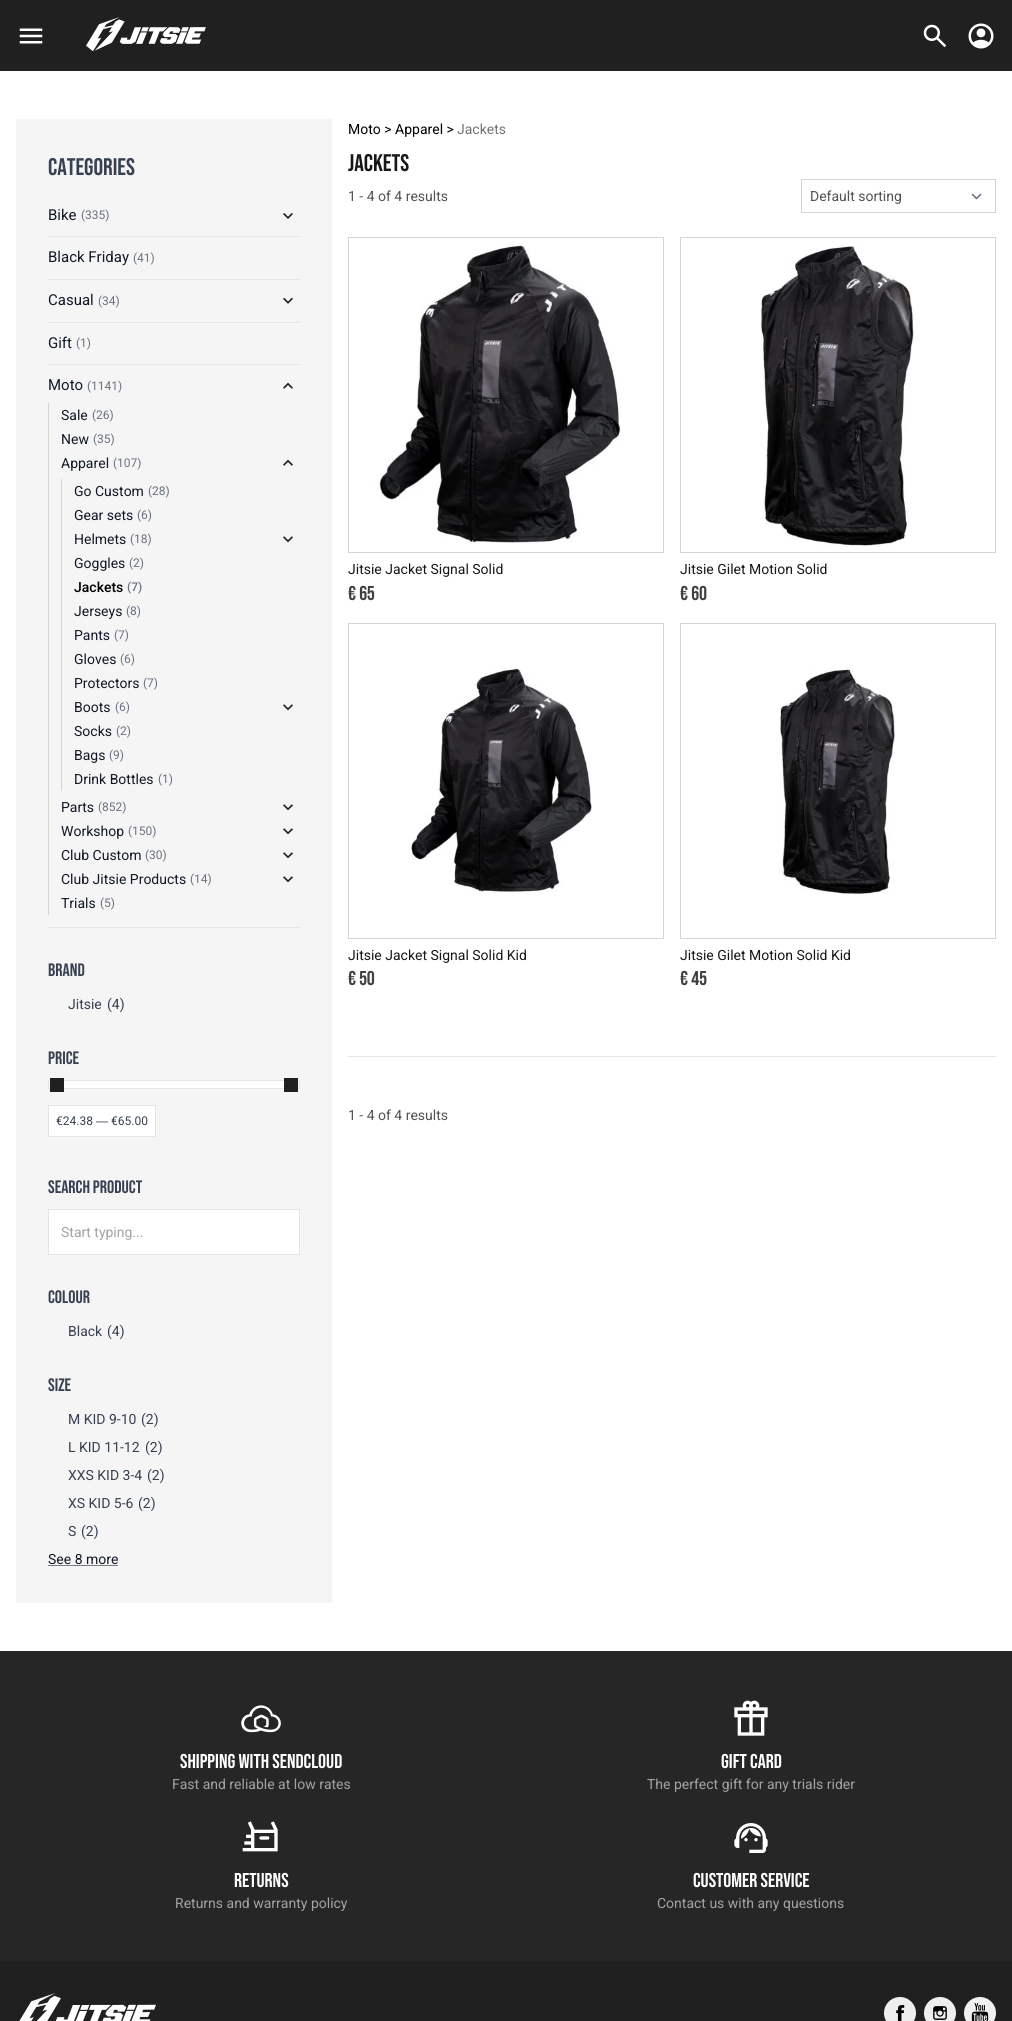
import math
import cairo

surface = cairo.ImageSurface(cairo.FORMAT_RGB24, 1012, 2021)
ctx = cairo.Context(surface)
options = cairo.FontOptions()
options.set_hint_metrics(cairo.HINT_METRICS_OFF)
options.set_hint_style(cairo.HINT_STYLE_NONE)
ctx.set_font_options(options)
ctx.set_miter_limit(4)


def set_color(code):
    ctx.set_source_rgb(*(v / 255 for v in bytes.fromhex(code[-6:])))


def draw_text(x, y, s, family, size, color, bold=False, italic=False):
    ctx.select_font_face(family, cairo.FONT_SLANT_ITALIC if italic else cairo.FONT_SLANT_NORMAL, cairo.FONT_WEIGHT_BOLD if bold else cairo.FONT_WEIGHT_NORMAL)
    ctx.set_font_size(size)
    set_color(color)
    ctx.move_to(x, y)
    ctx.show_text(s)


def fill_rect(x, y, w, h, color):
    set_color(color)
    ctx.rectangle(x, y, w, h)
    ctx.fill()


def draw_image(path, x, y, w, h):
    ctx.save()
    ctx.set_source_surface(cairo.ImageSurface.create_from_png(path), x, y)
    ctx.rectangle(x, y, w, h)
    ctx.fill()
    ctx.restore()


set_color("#ffffff")
ctx.paint()
fill_rect(0, 0, 1012, 71, "#202020")
draw_image("assets/img1.png", 19, 28, 24, 16)
draw_image("assets/img2.png", 86, 17, 120, 34)
draw_image("assets/img3.png", 923, 24, 24, 24)
draw_image("assets/img4.png", 968, 23, 26, 26)
fill_rect(16, 119, 316, 1484, "#f5f5f5")
draw_text(48, 175, "CATEGORIES", "Bebas Neue", 24, "#374151", bold=True)
fill_rect(48, 236, 252, 1, "#e5e5e5")
draw_text(48, 220, "Bike", "Roboto", 15, "#111827")
draw_text(81, 219, "(335)", "Roboto", 12, "#6b7280")
draw_image("assets/img5.png", 283, 213, 10, 6)
fill_rect(48, 279, 252, 1, "#e5e5e5")
draw_text(48, 262, "Black Friday", "Roboto", 15, "#111827")
draw_text(133, 262, "(41)", "Roboto", 12, "#6b7280")
fill_rect(48, 322, 252, 1, "#e5e5e5")
draw_text(48, 305, "Casual", "Roboto", 15, "#111827")
draw_text(98, 305, "(34)", "Roboto", 12, "#6b7280")
draw_image("assets/img6.png", 283, 297, 10, 7)
fill_rect(48, 364, 252, 1, "#e5e5e5")
draw_text(48, 348, "Gift", "Roboto", 15, "#111827")
draw_text(76, 347, "(1)", "Roboto", 12, "#6b7280")
fill_rect(48, 927, 252, 1, "#e5e5e5")
draw_text(48, 390, "Moto", "Roboto", 15, "#111827")
draw_text(87, 390, "(1141)", "Roboto", 12, "#6b7280")
draw_image("assets/img7.png", 283, 382, 10, 7)
fill_rect(48, 403, 1, 512, "#d4d4d4")
draw_text(61, 420, "Sale", "Roboto", 14, "#111827")
draw_text(92, 419, "(26)", "Roboto", 12, "#6b7280")
draw_text(61, 444, "New", "Roboto", 14, "#111827")
draw_text(93, 443, "(35)", "Roboto", 12, "#6b7280")
draw_text(61, 468, "Apparel", "Roboto", 14, "#111827")
draw_text(113, 467, "(107)", "Roboto", 12, "#6b7280")
draw_image("assets/img7.png", 283, 459, 10, 7)
fill_rect(61, 479, 1, 312, "#d4d4d4")
draw_text(74, 496, "Go Custom", "Roboto", 14, "#111827")
draw_text(148, 495, "(28)", "Roboto", 12, "#6b7280")
draw_text(74, 520, "Gear sets", "Roboto", 14, "#111827")
draw_text(137, 519, "(6)", "Roboto", 12, "#6b7280")
draw_text(74, 544, "Helmets", "Roboto", 14, "#111827")
draw_text(130, 543, "(18)", "Roboto", 12, "#6b7280")
draw_image("assets/img8.png", 283, 536, 10, 7)
draw_text(74, 568, "Goggles", "Roboto", 14, "#111827")
draw_text(129, 567, "(2)", "Roboto", 12, "#6b7280")
draw_text(74, 592, "Jackets", "Roboto Medium", 14, "#000000")
draw_text(127, 591, "(7)", "Roboto Medium", 12, "#6b7280")
draw_text(74, 616, "Jerseys", "Roboto", 14, "#111827")
draw_text(126, 615, "(8)", "Roboto", 12, "#6b7280")
draw_text(74, 640, "Pants", "Roboto", 14, "#111827")
draw_text(114, 639, "(7)", "Roboto", 12, "#6b7280")
draw_text(74, 664, "Gloves", "Roboto", 14, "#111827")
draw_text(120, 663, "(6)", "Roboto", 12, "#6b7280")
draw_text(74, 688, "Protectors", "Roboto", 14, "#111827")
draw_text(143, 687, "(7)", "Roboto", 12, "#6b7280")
draw_text(74, 712, "Boots", "Roboto", 14, "#111827")
draw_text(115, 711, "(6)", "Roboto", 12, "#6b7280")
draw_image("assets/img8.png", 283, 704, 10, 7)
draw_text(74, 736, "Socks", "Roboto", 14, "#111827")
draw_text(116, 735, "(2)", "Roboto", 12, "#6b7280")
draw_text(74, 760, "Bags", "Roboto", 14, "#111827")
draw_text(109, 759, "(9)", "Roboto", 12, "#6b7280")
draw_text(74, 784, "Drink Bottles", "Roboto", 14, "#111827")
draw_text(158, 783, "(1)", "Roboto", 12, "#6b7280")
draw_text(61, 812, "Parts", "Roboto", 14, "#111827")
draw_text(98, 811, "(852)", "Roboto", 12, "#6b7280")
draw_image("assets/img8.png", 283, 804, 10, 7)
draw_text(61, 836, "Workshop", "Roboto", 14, "#111827")
draw_text(128, 835, "(150)", "Roboto", 12, "#6b7280")
draw_image("assets/img8.png", 283, 828, 10, 7)
draw_text(61, 860, "Club Custom", "Roboto", 14, "#111827")
draw_text(145, 859, "(30)", "Roboto", 12, "#6b7280")
draw_image("assets/img8.png", 283, 852, 10, 7)
draw_text(61, 884, "Club Jitsie Products", "Roboto", 14, "#111827")
draw_text(190, 883, "(14)", "Roboto", 12, "#6b7280")
draw_image("assets/img8.png", 283, 876, 10, 7)
draw_text(61, 908, "Trials", "Roboto", 14, "#111827")
draw_text(100, 907, "(5)", "Roboto", 12, "#6b7280")
draw_text(48, 976, "BRAND", "Bebas Neue", 18, "#374151", bold=True)
draw_text(68, 1009, "Jitsie", "Roboto", 14, "#374151")
draw_text(107, 1009, "(4)", "Roboto", 14, "#374151")
draw_text(48, 1064, "PRICE", "Bebas Neue", 18, "#374151", bold=True)
set_color("#fafafa")
ctx.rectangle(48.5, 1080.5, 251, 8)
ctx.fill_preserve()
set_color("#e5e5e5")
ctx.set_line_width(1)
ctx.stroke()
fill_rect(57, 1081, 234, 7, "#ffffff")
fill_rect(50, 1078, 14, 14, "#202020")
fill_rect(284, 1078, 14, 14, "#202020")
set_color("#ffffff")
ctx.rectangle(48.5, 1105.5, 107, 31)
ctx.fill_preserve()
set_color("#e5e5e5")
ctx.stroke()
draw_text(56, 1125, "€24.38", "Roboto", 12, "#374151")
draw_text(96, 1125, "—", "Liberation Sans", 12, "#374151")
draw_text(111, 1125, "€65.00", "Roboto", 12, "#374151")
draw_text(48, 1193, "SEARCH PRODUCT", "Bebas Neue", 18, "#374151", bold=True)
set_color("#ffffff")
ctx.rectangle(48.5, 1209.5, 251, 45)
ctx.fill_preserve()
set_color("#e5e5e5")
ctx.stroke()
draw_text(61, 1237, "Start typing...", "Roboto", 14, "#a3a3a3")
draw_text(48, 1303, "COLOUR", "Bebas Neue", 18, "#374151", bold=True)
draw_text(68, 1336, "Black", "Roboto", 14, "#374151")
draw_text(107, 1336, "(4)", "Roboto", 14, "#374151")
draw_text(48, 1391, "SIZE", "Bebas Neue", 18, "#374151", bold=True)
draw_text(68, 1424, "M KID 9-10", "Roboto", 14, "#374151")
draw_text(141, 1424, "(2)", "Roboto", 14, "#374151")
draw_text(68, 1452, "L KID 11-12", "Roboto", 14, "#374151")
draw_text(145, 1452, "(2)", "Roboto", 14, "#374151")
draw_text(68, 1480, "XXS KID 3-4", "Roboto", 14, "#374151")
draw_text(147, 1480, "(2)", "Roboto", 14, "#374151")
draw_text(68, 1508, "XS KID 5-6", "Roboto", 14, "#374151")
draw_text(138, 1508, "(2)", "Roboto", 14, "#374151")
draw_text(68, 1536, "S", "Roboto", 14, "#374151")
draw_text(81, 1536, "(2)", "Roboto", 14, "#374151")
draw_text(48, 1564, "See 8 more", "Roboto", 14, "#111827")
fill_rect(48, 1565, 70, 1, "#787b84")
draw_text(348, 134, "Moto > Apparel >", "Roboto", 14, "#000000")
draw_text(457, 134, "Jackets", "Roboto", 14, "#737373")
draw_text(348, 171, "JACKETS", "Bebas Neue", 24, "#171717", bold=True)
draw_text(348, 201, "1 - 4 of 4 results", "Roboto", 14, "#525252")
ctx.new_path()
ctx.move_to(972.5, 194.5)
ctx.line_to(976.5, 198.5)
ctx.line_to(980.5, 194.5)
set_color("#6b7280")
ctx.set_line_width(1.6)
ctx.set_line_cap(cairo.LINE_CAP_ROUND)
ctx.set_line_join(cairo.LINE_JOIN_ROUND)
ctx.stroke()
ctx.rectangle(801.5, 179.5, 194, 33)
set_color("#d4d4d4")
ctx.set_line_width(1)
ctx.set_line_cap(cairo.LINE_CAP_BUTT)
ctx.set_line_join(cairo.LINE_JOIN_MITER)
ctx.stroke()
draw_text(810, 201, "Default sorting", "Roboto", 14, "#525252")
ctx.rectangle(348.5, 237.5, 315, 315)
set_color("#d4d4d4")
ctx.stroke()
draw_image("assets/img9.png", 375, 244, 246, 300)
draw_text(348, 574, "Jitsie Jacket Signal Solid", "Roboto", 14, "#171717")
draw_text(348, 600, "€ 65", "Bebas Neue", 20, "#404040", bold=True)
ctx.rectangle(680.5, 237.5, 315, 315)
set_color("#d4d4d4")
ctx.stroke()
draw_image("assets/img10.png", 760, 246, 154, 301)
draw_text(680, 574, "Jitsie Gilet Motion Solid", "Roboto", 14, "#171717")
draw_text(680, 600, "€ 60", "Bebas Neue", 20, "#404040", bold=True)
ctx.rectangle(348.5, 623.5, 315, 315)
set_color("#d4d4d4")
ctx.stroke()
draw_image("assets/img11.png", 409, 668, 183, 226)
draw_text(348, 960, "Jitsie Jacket Signal Solid Kid", "Roboto", 14, "#171717")
draw_text(348, 985, "€ 50", "Bebas Neue", 20, "#404040", bold=True)
ctx.rectangle(680.5, 623.5, 315, 315)
set_color("#d4d4d4")
ctx.stroke()
draw_image("assets/img12.png", 779, 668, 117, 227)
draw_text(680, 960, "Jitsie Gilet Motion Solid Kid", "Roboto", 14, "#171717")
draw_text(680, 985, "€ 45", "Bebas Neue", 20, "#404040", bold=True)
fill_rect(348, 1056, 648, 1, "#e5e5e5")
draw_text(348, 1120, "1 - 4 of 4 results", "Roboto", 14, "#525252")
fill_rect(0, 1961, 1012, 60, "#202020")
fill_rect(0, 1651, 1012, 310, "#262626")
draw_image("assets/img13.png", 241, 1705, 40, 28)
draw_text(180, 1768, "SHIPPING WITH SENDCLOUD", "Bebas Neue", 20, "#ffffff", bold=True)
draw_text(172, 1789, "Fast and reliable at low rates", "Roboto", 14, "#a3a3a3")
draw_image("assets/img14.png", 734, 1700, 34, 36)
draw_text(721, 1768, "GIFT CARD", "Bebas Neue", 20, "#ffffff", bold=True)
draw_text(647, 1789, "The perfect gift for any trials rider", "Roboto", 14, "#a3a3a3")
draw_image("assets/img15.png", 242, 1821, 36, 31)
draw_text(234, 1887, "RETURNS", "Bebas Neue", 20, "#ffffff", bold=True)
draw_text(175, 1908, "Returns and warranty policy", "Roboto", 14, "#a3a3a3")
draw_image("assets/img16.png", 734, 1823, 34, 30)
draw_text(693, 1887, "CUSTOMER SERVICE", "Bebas Neue", 20, "#ffffff", bold=True)
draw_text(657, 1908, "Contact us with any questions", "Roboto", 14, "#a3a3a3")
draw_image("assets/img17.png", 19, 1993, 137, 28)
draw_image("assets/img18.png", 884, 1997, 32, 24)
draw_image("assets/img19.png", 924, 1997, 32, 24)
draw_image("assets/img20.png", 964, 1997, 32, 24)
surface.write_to_png("output.png")
